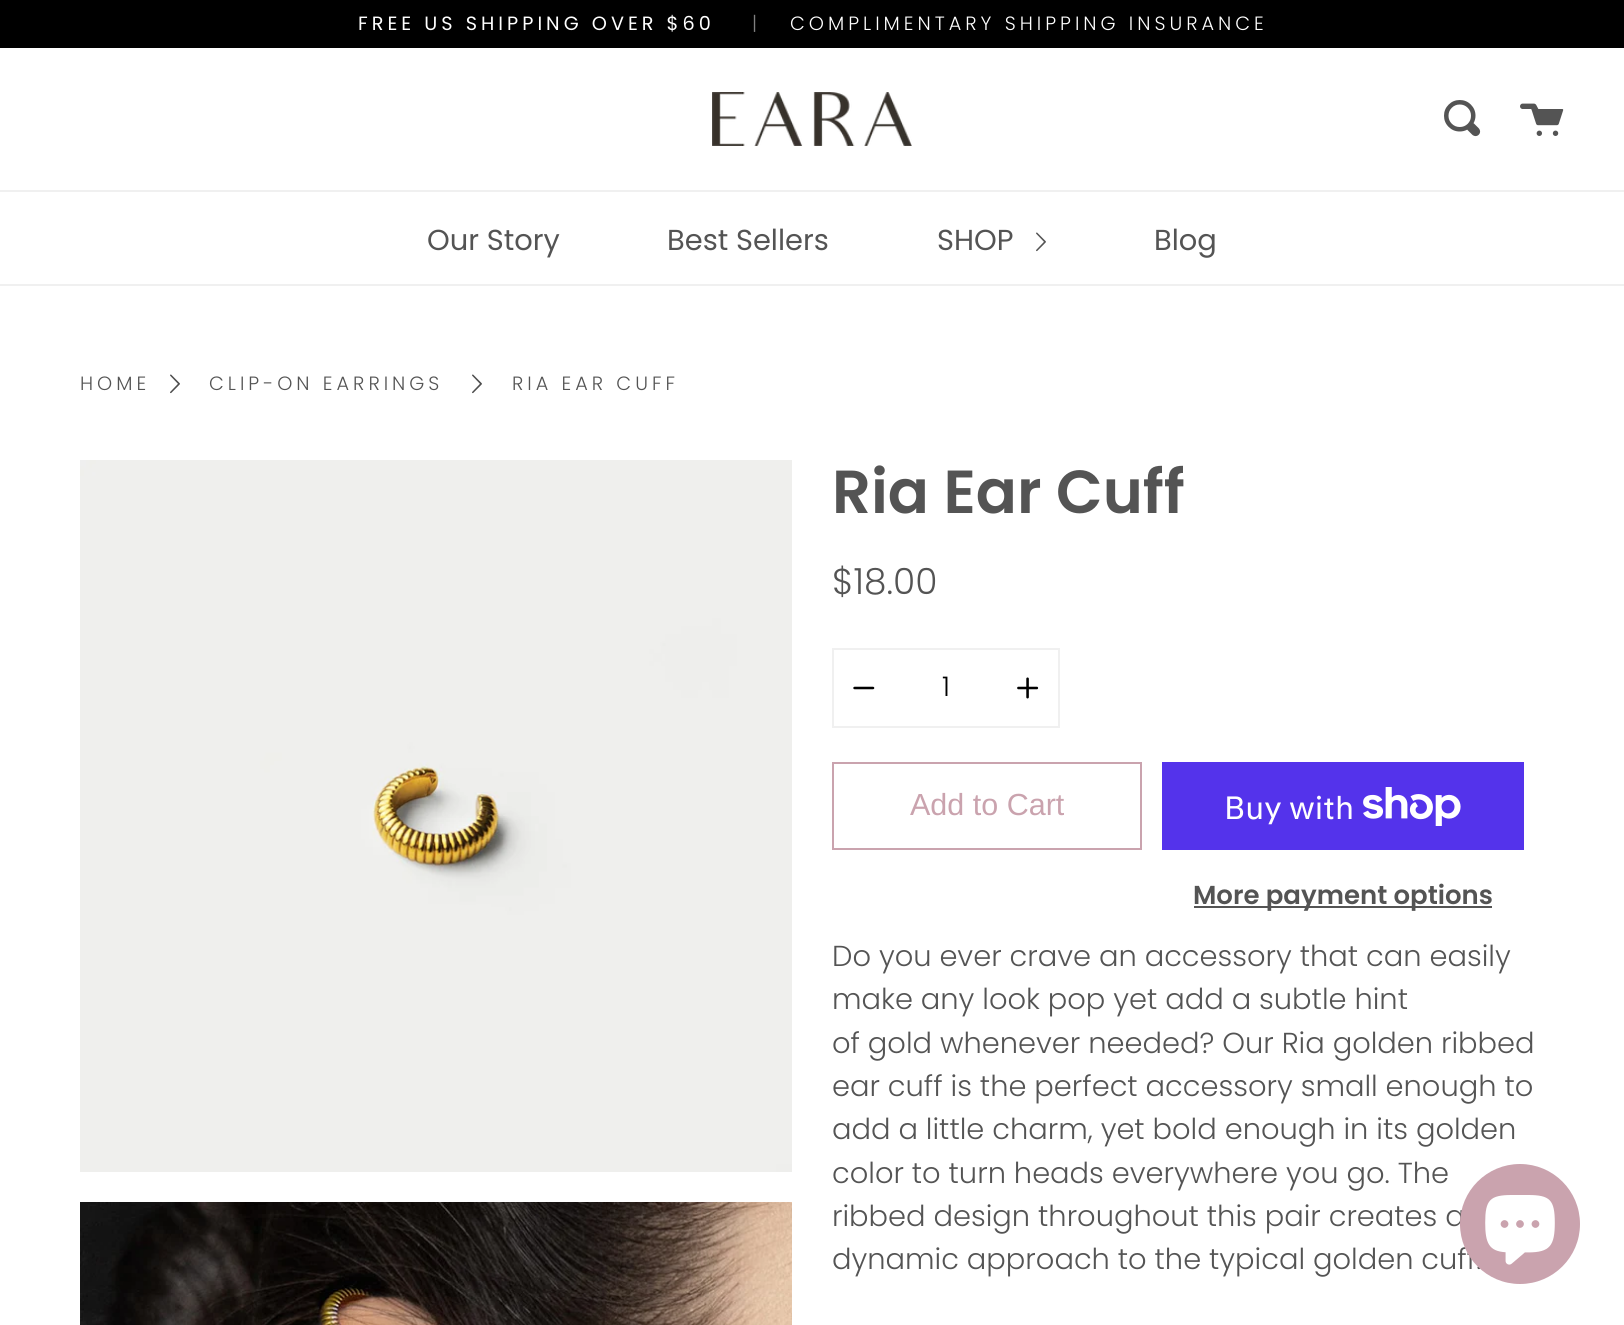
import math
import cairo

surface = cairo.ImageSurface(cairo.FORMAT_RGB24, 1624, 1325)
ctx = cairo.Context(surface)
options = cairo.FontOptions()
options.set_hint_metrics(cairo.HINT_METRICS_OFF)
options.set_hint_style(cairo.HINT_STYLE_NONE)
ctx.set_font_options(options)
ctx.set_miter_limit(4)


def set_color(code):
    ctx.set_source_rgb(*(v / 255 for v in bytes.fromhex(code[-6:])))


def draw_text(x, y, s, family, size, color, bold=False, italic=False):
    ctx.select_font_face(family, cairo.FONT_SLANT_ITALIC if italic else cairo.FONT_SLANT_NORMAL, cairo.FONT_WEIGHT_BOLD if bold else cairo.FONT_WEIGHT_NORMAL)
    ctx.set_font_size(size)
    set_color(color)
    ctx.move_to(x, y)
    ctx.show_text(s)


def draw_spaced(x, y, s, letter, word):
    ctx.move_to(x, y)
    for ch in s:
        ctx.show_text(ch)
        ctx.rel_move_to(letter + word * (ch == ' '), 0)


def fill_rect(x, y, w, h, color):
    set_color(color)
    ctx.rectangle(x, y, w, h)
    ctx.fill()


def draw_image(path, x, y, w, h):
    ctx.save()
    ctx.set_source_surface(cairo.ImageSurface.create_from_png(path), x, y)
    ctx.rectangle(x, y, w, h)
    ctx.fill()
    ctx.restore()


set_color("#ffffff")
ctx.paint()
fill_rect(0, 0, 1624, 48, "#000000")
ctx.select_font_face("Poppins")
ctx.set_font_size(19.25)
set_color("#ffffff")
draw_spaced(358, 30, "FREE US SHIPPING OVER $60", 4, 0)
ctx.select_font_face("Poppins Light")
set_color("#808080")
draw_spaced(752, 30, "|", 4, 0)
set_color("#ffffff")
draw_spaced(790, 30, "COMPLIMENTARY SHIPPING INSURANCE", 4, 0)
draw_image("assets/img1.png", 712, 92, 200, 54)
draw_image("assets/img2.png", 1444, 100, 37, 37)
draw_image("assets/img3.png", 1520, 103, 44, 33)
fill_rect(0, 190, 1624, 2, "#f0f0f0")
fill_rect(0, 284, 1624, 2, "#f0f0f0")
draw_text(427, 250, "Our Story", "Poppins", 28.9, "#545454")
draw_text(667, 250, "Best Sellers", "Poppins", 28.9, "#545454")
draw_text(937, 250, "SHOP", "Poppins", 28.9, "#545454")
draw_image("assets/img4.png", 1036, 232, 10, 20)
draw_text(1154, 250, "Blog", "Poppins", 28.9, "#545454")
ctx.select_font_face("Poppins Light")
ctx.set_font_size(19.25)
draw_spaced(80, 390, "HOME", 4, 0)
draw_image("assets/img5.png", 170, 374, 10, 20)
draw_spaced(209, 390, "CLIP-ON EARRINGS", 4, 0)
draw_image("assets/img5.png", 472, 374, 10, 20)
draw_spaced(512, 390, "RIA EAR CUFF", 4, 0)
draw_image("assets/img6.png", 80, 460, 712, 712)
draw_image("assets/img7.png", 80, 1202, 712, 123)
draw_text(832, 513, "Ria Ear Cuff", "Poppins SemiBold", 60.75, "#545454")
draw_text(832, 594, "$18.00", "Poppins Light", 36, "#545454")
ctx.rectangle(833, 649, 226, 78)
set_color("#f0f0f0")
ctx.stroke()
draw_image("assets/img8.png", 853, 686, 22, 4)
draw_text(942, 696, "1", "Poppins Light", 27, "#000000")
draw_image("assets/img9.png", 1017, 677, 22, 22)
ctx.rectangle(833, 763, 308, 86)
set_color("#caa3ae")
ctx.stroke()
draw_text(910, 815, "Add to Cart", "Liberation Sans", 30.5, "#caa3ae")
fill_rect(1162, 762, 362, 88, "#5433eb")
draw_text(1224, 819, "Buy with", "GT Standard", 32, "#ffffff")
draw_image("assets/img10.png", 1363, 787, 98, 39)
fill_rect(1194, 906, 298, 2, "#545454")
draw_text(1193, 904, "More payment options", "Poppins SemiBold", 26, "#545454")
draw_text(832, 966, "Do you ever crave an accessory that can easily", "Poppins Light", 28.9, "#545454")
draw_text(832, 1009, "make any look pop yet add a subtle hint", "Poppins Light", 28.9, "#545454")
draw_text(832, 1053, "of gold whenever needed? Our Ria golden ribbed", "Poppins Light", 28.9, "#545454")
draw_text(832, 1096, "ear cuff is the perfect accessory small enough to", "Poppins Light", 28.9, "#545454")
draw_text(832, 1139, "add a little charm, yet bold enough in its golden", "Poppins Light", 28.9, "#545454")
draw_text(832, 1183, "color to turn heads everywhere you go. The", "Poppins Light", 28.9, "#545454")
draw_text(832, 1226, "ribbed design throughout this pair creates a", "Poppins Light", 28.9, "#545454")
draw_text(832, 1269, "dynamic approach to the typical golden cuff.", "Poppins Light", 28.9, "#545454")
set_color("#caa3ae")
ctx.new_path()
ctx.arc(1520, 1224, 60, 0, 2 * math.pi)
ctx.fill()
draw_image("assets/img11.png", 1485, 1195, 70, 70)
surface.write_to_png("output.png")
